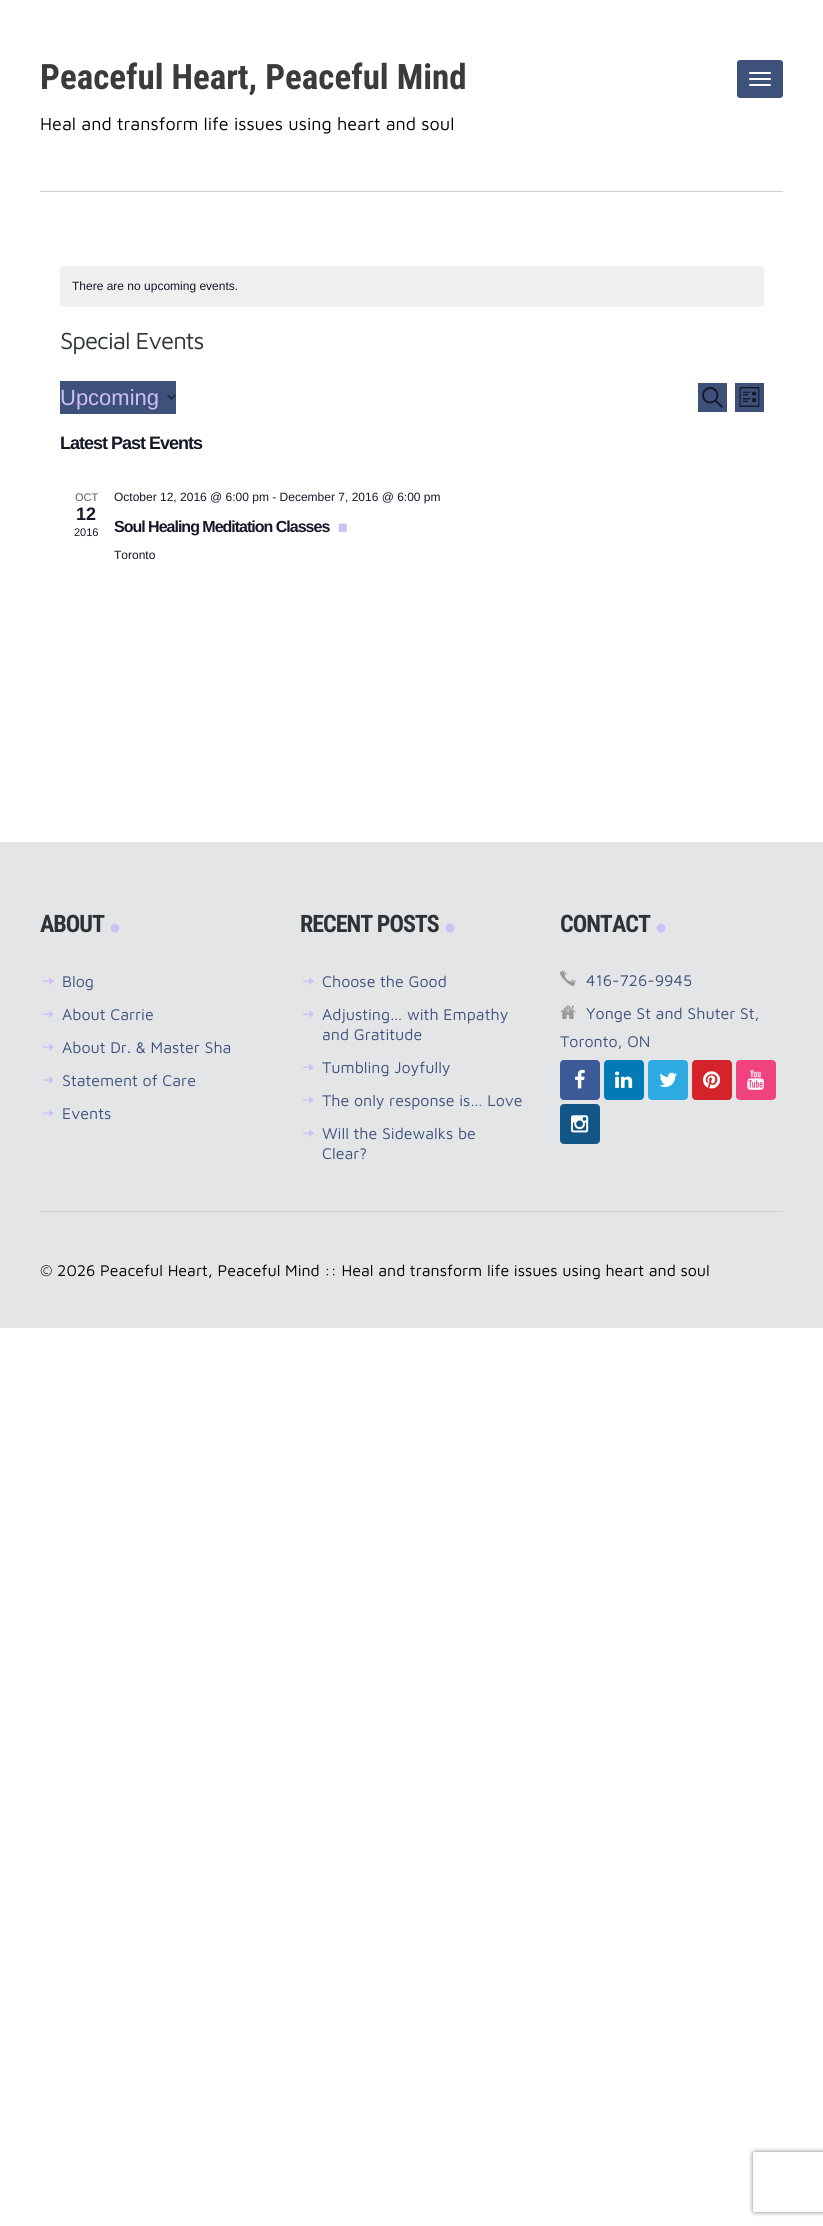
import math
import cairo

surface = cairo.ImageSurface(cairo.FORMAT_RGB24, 823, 2226)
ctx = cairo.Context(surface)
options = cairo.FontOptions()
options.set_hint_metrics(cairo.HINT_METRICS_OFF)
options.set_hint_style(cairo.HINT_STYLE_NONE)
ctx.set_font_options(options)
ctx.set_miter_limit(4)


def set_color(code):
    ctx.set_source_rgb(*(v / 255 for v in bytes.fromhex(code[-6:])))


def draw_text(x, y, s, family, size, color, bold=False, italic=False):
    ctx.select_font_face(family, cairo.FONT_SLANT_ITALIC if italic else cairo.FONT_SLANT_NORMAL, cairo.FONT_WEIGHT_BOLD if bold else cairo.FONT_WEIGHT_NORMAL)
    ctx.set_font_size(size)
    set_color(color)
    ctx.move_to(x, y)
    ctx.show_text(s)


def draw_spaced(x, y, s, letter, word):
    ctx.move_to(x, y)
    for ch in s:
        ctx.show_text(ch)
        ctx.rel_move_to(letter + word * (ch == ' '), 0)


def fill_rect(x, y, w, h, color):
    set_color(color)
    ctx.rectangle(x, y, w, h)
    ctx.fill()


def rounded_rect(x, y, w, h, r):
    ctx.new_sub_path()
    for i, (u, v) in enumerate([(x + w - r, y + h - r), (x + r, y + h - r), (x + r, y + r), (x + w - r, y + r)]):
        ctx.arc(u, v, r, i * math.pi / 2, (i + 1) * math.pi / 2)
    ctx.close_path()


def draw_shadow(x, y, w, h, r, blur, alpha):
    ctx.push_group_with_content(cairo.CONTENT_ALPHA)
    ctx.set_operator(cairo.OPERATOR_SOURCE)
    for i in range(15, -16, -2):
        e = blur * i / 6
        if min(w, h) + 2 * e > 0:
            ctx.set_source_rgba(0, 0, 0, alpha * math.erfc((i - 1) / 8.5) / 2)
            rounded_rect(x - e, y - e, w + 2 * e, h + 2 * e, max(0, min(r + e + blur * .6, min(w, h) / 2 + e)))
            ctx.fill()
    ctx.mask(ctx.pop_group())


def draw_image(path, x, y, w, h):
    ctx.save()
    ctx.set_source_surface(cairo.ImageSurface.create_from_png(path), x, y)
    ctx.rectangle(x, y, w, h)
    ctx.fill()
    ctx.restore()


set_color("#ffffff")
ctx.paint()
fill_rect(40, 191, 743, 1, "#cad2d7")
draw_text(40, 89, "Peaceful Heart, Peaceful Mind", "Roboto Condensed", 35, "#3a3b3c", bold=True)
draw_text(40, 130, "Heal and transform life issues using heart and soul", "Maven Pro", 18, "#000000")
set_color("#3e517a")
rounded_rect(737, 60, 46, 38, 3)
ctx.fill()
set_color("#ffffff")
rounded_rect(749, 72, 22, 2, 1)
ctx.fill()
rounded_rect(749, 78, 22, 2, 1)
ctx.fill()
rounded_rect(749, 84, 22, 2, 1)
ctx.fill()
set_color("#efeff0")
rounded_rect(60, 266, 704, 41, 4)
ctx.fill()
draw_text(72, 290, "There are no upcoming events.", "Liberation Sans", 12, "#141827")
ctx.select_font_face("Maven Pro")
ctx.set_font_size(24)
set_color("#2d3438")
draw_spaced(60, 349, "Special Events", -1, 0)
fill_rect(60, 381, 116, 33, "#3e517a")
draw_text(60, 405, "Upcoming", "Liberation Sans", 22, "#cfbff7")
draw_image("assets/img1.png", 167, 394, 9, 6)
fill_rect(698, 383, 29, 29, "#3e517a")
draw_image("assets/img2.png", 702, 387, 21, 21)
fill_rect(735, 383, 29, 29, "#3e517a")
draw_image("assets/img3.png", 739, 387, 21, 20)
ctx.select_font_face("Liberation Sans", cairo.FONT_SLANT_NORMAL, cairo.FONT_WEIGHT_BOLD)
ctx.set_font_size(18)
set_color("#141827")
draw_spaced(60, 449, "Latest Past Events", -1, 0)
draw_text(75, 501, "OCT", "Liberation Sans", 11, "#5d5d5d")
draw_text(76, 520, "12", "Liberation Sans", 18, "#141827", bold=True)
draw_text(74, 536, "2016", "Liberation Sans", 11, "#141827")
draw_text(114, 501, "October 12, 2016 @ 6:00 pm - December 7, 2016 @ 6:00 pm", "Liberation Sans", 12, "#141827")
ctx.select_font_face("Liberation Sans", cairo.FONT_SLANT_NORMAL, cairo.FONT_WEIGHT_BOLD)
ctx.set_font_size(16)
draw_spaced(114, 532, "Soul Healing Meditation Classes", -1, 0)
ctx.set_font_size(56)
set_color("#cfbff7")
draw_spaced(335, 532, ".", -1, 0)
draw_text(114, 559, "Toronto", "Liberation Sans", 12, "#141827")
fill_rect(0, 842, 823, 486, "#e3e5e7")
ctx.select_font_face("Roboto Condensed", cairo.FONT_SLANT_NORMAL, cairo.FONT_WEIGHT_BOLD)
ctx.set_font_size(24)
set_color("#2d3438")
draw_spaced(40, 932, "ABOUT", -1, 0)
ctx.set_font_size(56)
set_color("#cfbff7")
draw_spaced(107, 932, ".", -1, 0)
draw_image("assets/img4.png", 43, 977, 11, 8)
draw_text(62, 987, "Blog", "Maven Pro", 16, "#3e517a")
draw_image("assets/img4.png", 43, 1010, 11, 8)
draw_text(62, 1020, "About Carrie", "Maven Pro", 16, "#3e517a")
draw_image("assets/img4.png", 43, 1043, 11, 8)
draw_text(62, 1053, "About Dr. & Master Sha", "Maven Pro", 16, "#3e517a")
draw_image("assets/img4.png", 43, 1076, 11, 8)
draw_text(62, 1086, "Statement of Care", "Maven Pro", 16, "#3e517a")
draw_image("assets/img4.png", 43, 1109, 11, 8)
draw_text(62, 1119, "Events", "Maven Pro", 16, "#3e517a")
ctx.select_font_face("Roboto Condensed", cairo.FONT_SLANT_NORMAL, cairo.FONT_WEIGHT_BOLD)
ctx.set_font_size(24)
set_color("#2d3438")
draw_spaced(300, 932, "RECENT POSTS", -1, 0)
ctx.set_font_size(56)
set_color("#cfbff7")
draw_spaced(442, 932, ".", -1, 0)
draw_image("assets/img4.png", 303, 977, 11, 8)
draw_text(322, 987, "Choose the Good", "Maven Pro", 16, "#3e517a")
draw_image("assets/img4.png", 303, 1010, 11, 8)
draw_text(322, 1020, "Adjusting… with Empathy", "Maven Pro", 16, "#3e517a")
draw_text(322, 1040, "and Gratitude", "Maven Pro", 16, "#3e517a")
draw_image("assets/img4.png", 303, 1063, 11, 8)
draw_text(322, 1073, "Tumbling Joyfully", "Maven Pro", 16, "#3e517a")
draw_image("assets/img4.png", 303, 1096, 11, 8)
draw_text(322, 1106, "The only response is… Love", "Maven Pro", 16, "#3e517a")
draw_image("assets/img4.png", 303, 1129, 11, 8)
draw_text(322, 1139, "Will the Sidewalks be", "Maven Pro", 16, "#3e517a")
draw_text(322, 1159, "Clear?", "Maven Pro", 16, "#3e517a")
ctx.select_font_face("Roboto Condensed", cairo.FONT_SLANT_NORMAL, cairo.FONT_WEIGHT_BOLD)
ctx.set_font_size(24)
set_color("#2d3438")
draw_spaced(560, 932, "CONTACT", -1, 0)
ctx.set_font_size(56)
set_color("#cfbff7")
draw_spaced(653, 932, ".", -1, 0)
draw_image("assets/img5.png", 560, 970, 16, 16)
draw_text(586, 986, "416-726-9945", "Maven Pro", 16, "#3e517a")
draw_image("assets/img6.png", 560, 1005, 16, 14)
draw_text(586, 1019, "Yonge St and Shuter St,", "Maven Pro", 16, "#3e517a")
draw_text(560, 1047, "Toronto, ON", "Maven Pro", 16, "#3e517a")
set_color("#3c5a98")
rounded_rect(560, 1060, 40, 40, 4)
ctx.fill()
draw_image("assets/img7.png", 575, 1069, 10, 20)
set_color("#007bb6")
rounded_rect(604, 1060, 40, 40, 4)
ctx.fill()
draw_image("assets/img8.png", 615, 1071, 18, 17)
set_color("#2daae2")
rounded_rect(648, 1060, 40, 40, 4)
ctx.fill()
draw_image("assets/img9.png", 659, 1072, 18, 15)
set_color("#d62229")
rounded_rect(692, 1060, 40, 40, 4)
ctx.fill()
draw_image("assets/img10.png", 703, 1071, 18, 18)
set_color("#f14280")
rounded_rect(736, 1060, 40, 40, 4)
ctx.fill()
draw_image("assets/img11.png", 747, 1069, 17, 21)
set_color("#125688")
rounded_rect(560, 1104, 40, 40, 4)
ctx.fill()
draw_image("assets/img12.png", 571, 1115, 18, 18)
fill_rect(40, 1211, 743, 1, "#cad2d7")
draw_text(40, 1276, "© 2026 Peaceful Heart, Peaceful Mind :: Heal and transform life issues using heart and soul", "Maven Pro", 16, "#000000")
ctx.save()
ctx.set_fill_rule(cairo.FILL_RULE_EVEN_ODD)
ctx.new_path()
ctx.move_to(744, 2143)
ctx.line_to(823, 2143)
ctx.line_to(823, 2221)
ctx.line_to(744, 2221)
ctx.close_path()
ctx.move_to(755, 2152)
ctx.line_to(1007, 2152)
ctx.curve_to(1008, 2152, 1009, 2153, 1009, 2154)
ctx.line_to(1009, 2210)
ctx.curve_to(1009, 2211, 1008, 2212, 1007, 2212)
ctx.line_to(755, 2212)
ctx.curve_to(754, 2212, 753, 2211, 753, 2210)
ctx.line_to(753, 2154)
ctx.curve_to(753, 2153, 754, 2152, 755, 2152)
ctx.close_path()
ctx.clip()
set_color("#808080")
draw_shadow(753, 2152, 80, 60, 2, 2.5, 1)
ctx.restore()
surface.write_to_png("output.png")
